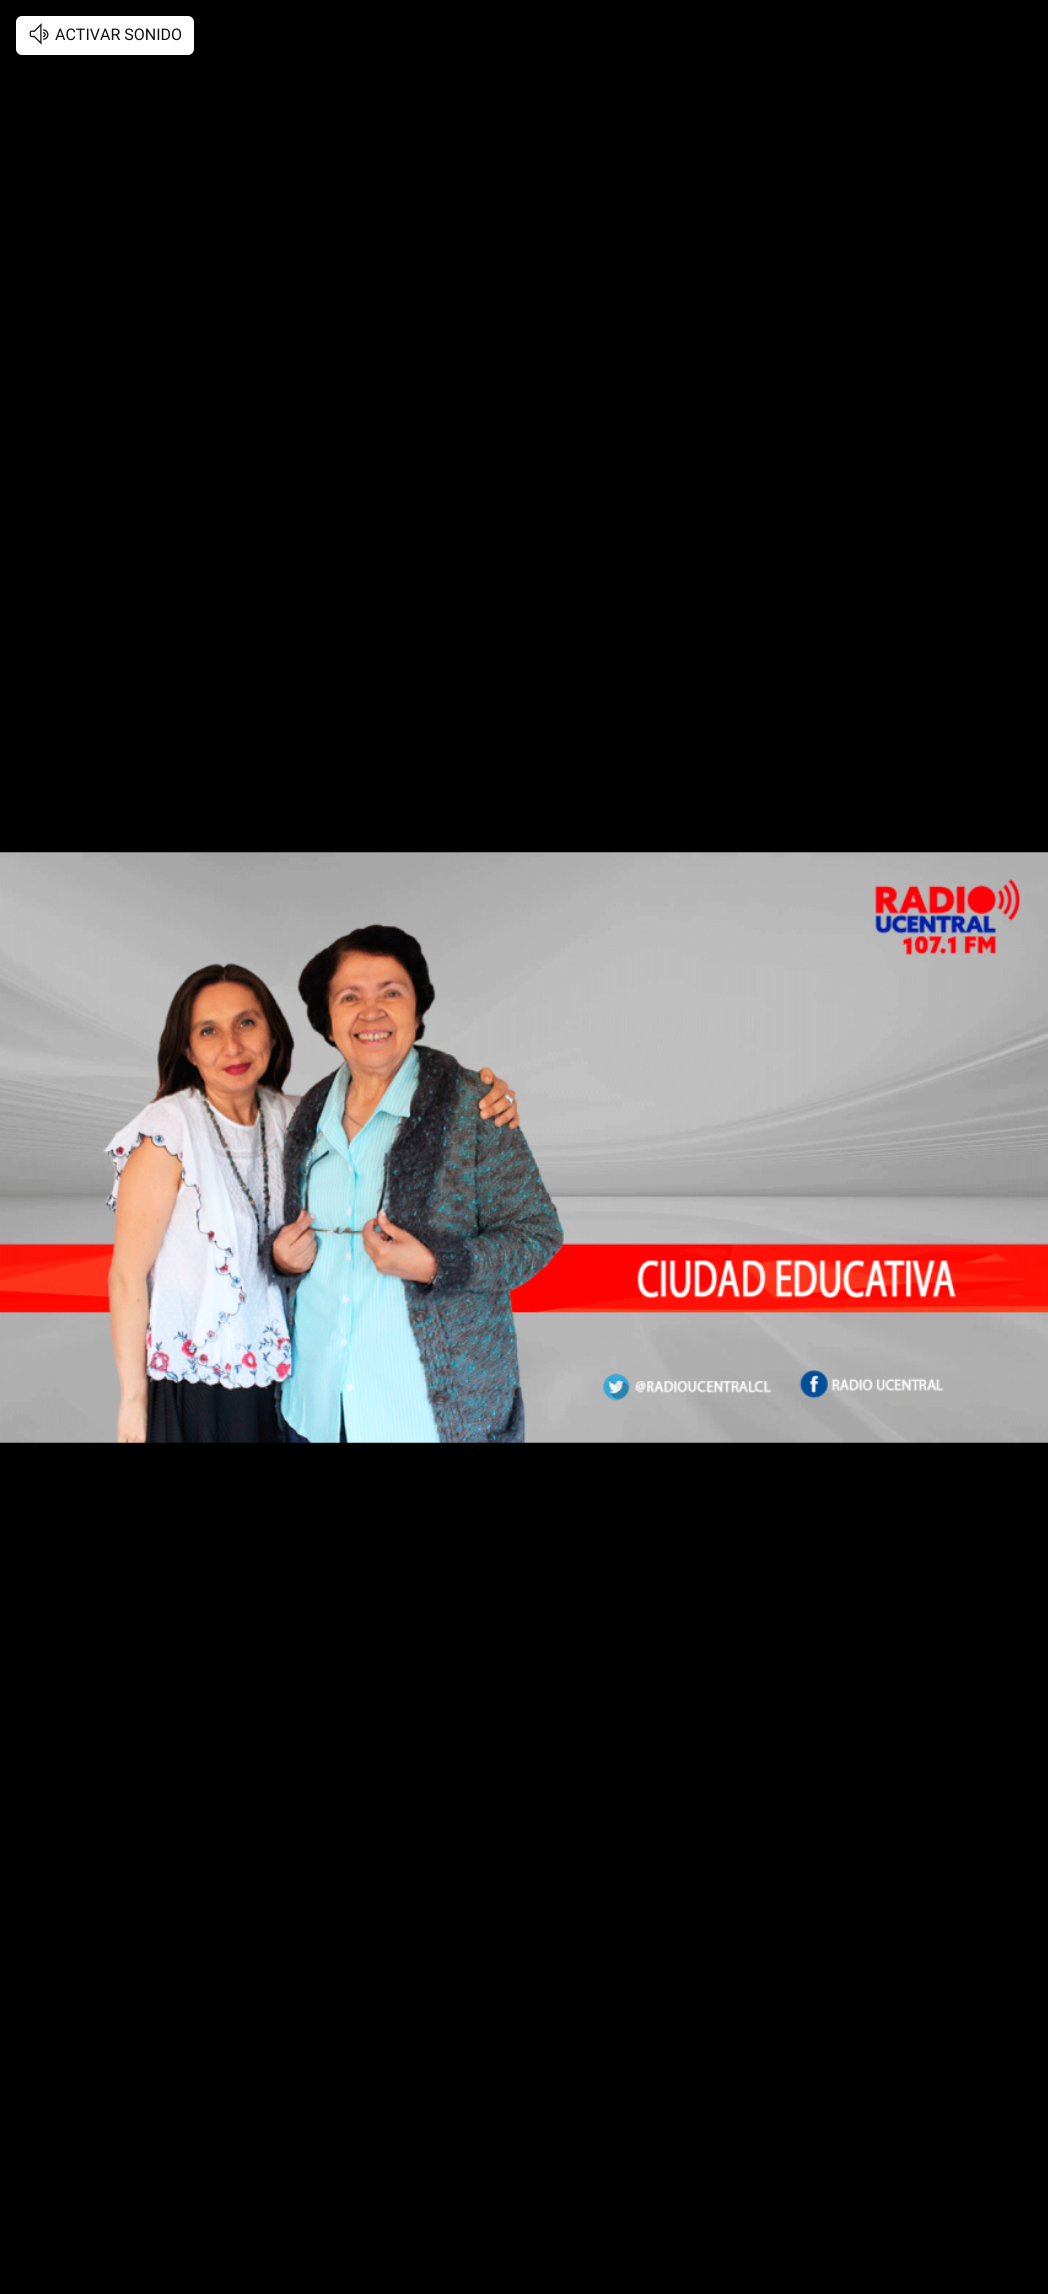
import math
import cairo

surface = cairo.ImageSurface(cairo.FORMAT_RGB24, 1048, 2294)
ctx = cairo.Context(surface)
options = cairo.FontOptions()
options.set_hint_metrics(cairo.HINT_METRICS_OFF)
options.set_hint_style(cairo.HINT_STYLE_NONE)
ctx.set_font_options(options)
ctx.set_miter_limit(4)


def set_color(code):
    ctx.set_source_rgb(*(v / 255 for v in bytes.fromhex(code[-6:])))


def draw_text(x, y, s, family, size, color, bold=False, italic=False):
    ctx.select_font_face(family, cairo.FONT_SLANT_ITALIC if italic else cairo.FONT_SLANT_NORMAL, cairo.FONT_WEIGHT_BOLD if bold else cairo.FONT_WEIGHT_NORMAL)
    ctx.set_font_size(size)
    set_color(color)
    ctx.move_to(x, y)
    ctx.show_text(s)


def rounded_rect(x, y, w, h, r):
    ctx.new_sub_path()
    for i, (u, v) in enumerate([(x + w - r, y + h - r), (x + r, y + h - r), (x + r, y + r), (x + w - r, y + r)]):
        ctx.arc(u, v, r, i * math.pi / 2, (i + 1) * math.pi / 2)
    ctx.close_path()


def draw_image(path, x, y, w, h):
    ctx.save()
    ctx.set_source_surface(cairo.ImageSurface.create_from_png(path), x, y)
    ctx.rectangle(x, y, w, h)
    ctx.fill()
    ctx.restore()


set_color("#000000")
ctx.paint()
set_color("#ffffff")
rounded_rect(16, 16, 178, 39, 6)
ctx.fill()
draw_image("assets/img1.png", 29, 23, 20, 22)
draw_text(55, 40, "ACTIVAR SONIDO", "Roboto", 16, "#121212")
draw_image("assets/img2.png", 0, 852, 1048, 591)
draw_image("assets/img3.png", 0, 852, 1048, 591)
surface.write_to_png("output.png")
